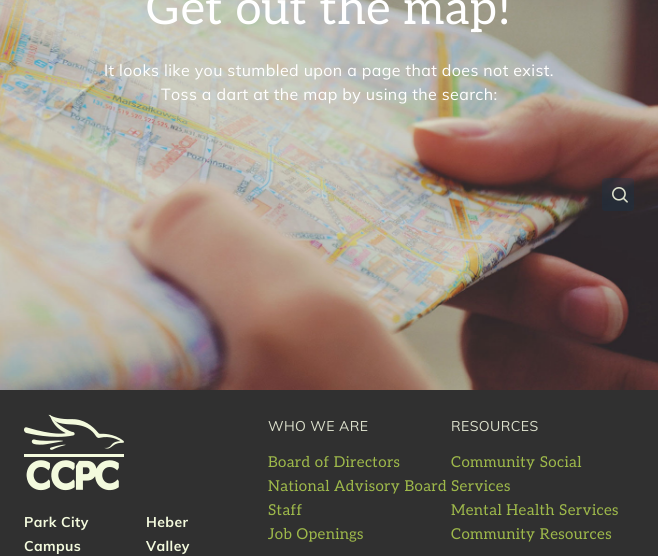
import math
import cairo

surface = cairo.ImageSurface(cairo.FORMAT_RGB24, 658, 556)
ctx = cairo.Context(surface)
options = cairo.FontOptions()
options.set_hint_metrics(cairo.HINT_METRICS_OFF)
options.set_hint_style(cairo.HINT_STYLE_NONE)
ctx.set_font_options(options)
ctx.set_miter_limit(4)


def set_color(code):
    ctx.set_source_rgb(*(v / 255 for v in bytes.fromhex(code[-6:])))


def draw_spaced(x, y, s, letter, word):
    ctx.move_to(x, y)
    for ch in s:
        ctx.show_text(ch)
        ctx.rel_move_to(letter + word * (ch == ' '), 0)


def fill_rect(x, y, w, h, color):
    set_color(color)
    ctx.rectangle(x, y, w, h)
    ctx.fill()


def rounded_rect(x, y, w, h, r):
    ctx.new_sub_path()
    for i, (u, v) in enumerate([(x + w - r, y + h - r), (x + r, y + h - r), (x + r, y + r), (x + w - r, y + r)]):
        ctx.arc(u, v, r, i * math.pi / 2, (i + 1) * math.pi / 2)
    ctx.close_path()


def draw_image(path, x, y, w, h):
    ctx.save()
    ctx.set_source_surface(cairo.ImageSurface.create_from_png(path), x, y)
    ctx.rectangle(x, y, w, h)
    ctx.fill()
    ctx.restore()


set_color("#ffffff")
ctx.paint()
draw_image("assets/img1.png", 0, 0, 658, 390)
ctx.select_font_face("Aleo")
ctx.set_font_size(47)
set_color("#ffffff")
draw_spaced(146, 24, "Get out the map!", 0.4, 0)
ctx.select_font_face("Muli")
ctx.set_font_size(16)
draw_spaced(104, 76, "It looks like you stumbled upon a page that does not exist.", 0.4, 0)
draw_spaced(161, 100, "Toss a dart at the map by using the search:", 0.4, 0)
ctx.set_source_rgba(0.055, 0.231, 0.345, 0.25)
rounded_rect(602, 178, 32, 33, 3)
ctx.fill()
draw_image("assets/img2.png", 612, 187, 16, 16)
fill_rect(0, 390, 658, 166, "#303030")
draw_image("assets/img3.png", 24, 414, 100, 77)
ctx.select_font_face("Muli", cairo.FONT_SLANT_NORMAL, cairo.FONT_WEIGHT_BOLD)
ctx.set_font_size(14)
set_color("#f3fadd")
draw_spaced(24, 527, "Park City", 0.4, 0)
draw_spaced(24, 551, "Campus", 0.4, 0)
draw_spaced(146, 527, "Heber", 0.4, 0)
draw_spaced(146, 551, "Valley", 0.4, 0)
ctx.select_font_face("Muli")
set_color("#dce0cc")
draw_spaced(268, 431, "WHO WE ARE", 0.4, 0)
ctx.select_font_face("Aleo")
ctx.set_font_size(15)
set_color("#9eb94a")
draw_spaced(268, 467, "Board of Directors", 0.4, 0)
draw_spaced(268, 491, "National Advisory Board", 0.4, 0)
draw_spaced(268, 515, "Staff", 0.4, 0)
draw_spaced(268, 539, "Job Openings", 0.4, 0)
ctx.select_font_face("Muli")
ctx.set_font_size(14)
set_color("#dce0cc")
draw_spaced(451, 431, "RESOURCES", 0.4, 0)
ctx.select_font_face("Aleo")
ctx.set_font_size(15)
set_color("#9eb94a")
draw_spaced(451, 467, "Community Social", 0.4, 0)
draw_spaced(451, 491, "Services", 0.4, 0)
draw_spaced(451, 515, "Mental Health Services", 0.4, 0)
draw_spaced(451, 539, "Community Resources", 0.4, 0)
surface.write_to_png("output.png")
